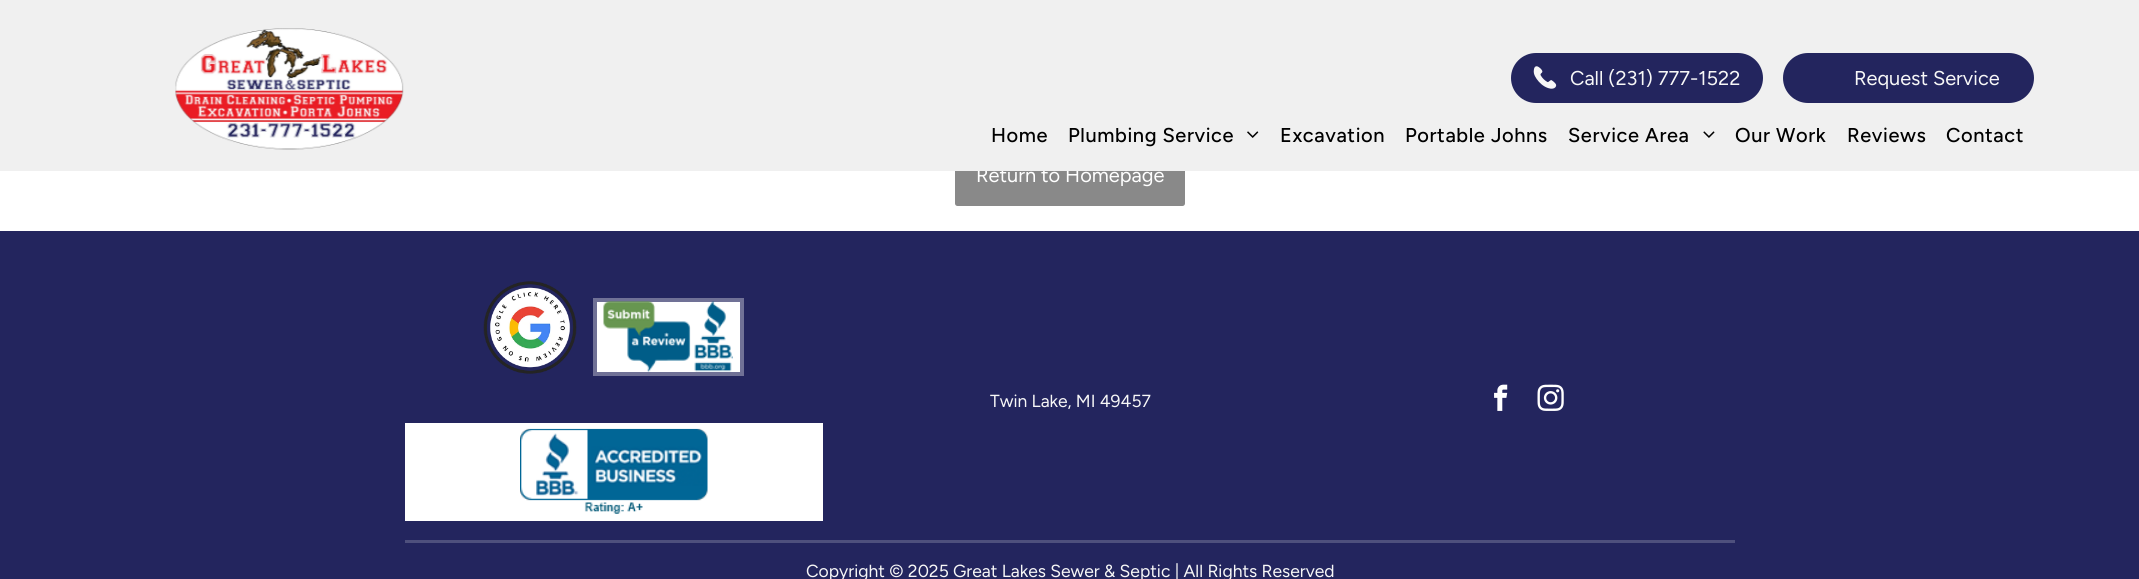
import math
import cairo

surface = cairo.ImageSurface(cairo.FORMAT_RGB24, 2139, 579)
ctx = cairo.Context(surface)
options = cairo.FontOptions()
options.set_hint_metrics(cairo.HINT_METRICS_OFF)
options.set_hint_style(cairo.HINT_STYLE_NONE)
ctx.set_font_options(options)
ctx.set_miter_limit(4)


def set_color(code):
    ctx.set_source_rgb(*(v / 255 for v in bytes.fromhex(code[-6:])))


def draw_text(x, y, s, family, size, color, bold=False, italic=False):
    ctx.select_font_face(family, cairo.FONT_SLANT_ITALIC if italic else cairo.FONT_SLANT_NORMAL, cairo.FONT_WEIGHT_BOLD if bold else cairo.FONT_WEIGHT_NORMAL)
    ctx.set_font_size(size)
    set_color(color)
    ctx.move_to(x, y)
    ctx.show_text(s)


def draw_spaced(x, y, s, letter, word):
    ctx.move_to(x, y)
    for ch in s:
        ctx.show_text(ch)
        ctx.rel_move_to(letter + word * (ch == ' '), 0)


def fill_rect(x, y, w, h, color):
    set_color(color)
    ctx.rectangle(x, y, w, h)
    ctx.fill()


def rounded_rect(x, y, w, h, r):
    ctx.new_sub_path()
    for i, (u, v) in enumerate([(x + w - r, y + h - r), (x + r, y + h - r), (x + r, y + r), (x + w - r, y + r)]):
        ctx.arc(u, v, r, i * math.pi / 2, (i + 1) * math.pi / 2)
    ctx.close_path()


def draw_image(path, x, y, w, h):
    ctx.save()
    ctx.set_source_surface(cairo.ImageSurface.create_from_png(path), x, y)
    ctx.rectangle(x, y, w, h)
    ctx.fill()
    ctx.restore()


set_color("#ffffff")
ctx.paint()
set_color("#898989")
rounded_rect(955, 160, 230, 46, 2.5)
ctx.fill()
draw_text(976, 182, "Return to Homepage", "Figtree", 20, "#ffffff")
fill_rect(0, 0, 2139, 171, "#f0f0f0")
draw_image("assets/img1.png", 175, 28, 229, 122)
set_color("#23255e")
rounded_rect(1511, 53, 252, 50, 25)
ctx.fill()
draw_image("assets/img2.png", 1533, 66, 24, 23)
draw_text(1570, 85, "Call (231) 777-1522", "Figtree", 20, "#f7f7f7")
set_color("#23255e")
rounded_rect(1783, 53, 251, 50, 25)
ctx.fill()
draw_text(1854, 85, "Request Service", "Figtree", 20, "#f7f7f7")
ctx.select_font_face("Figtree Medium")
set_color("#000000")
draw_spaced(991, 142, "Home", 0.6, 0)
draw_spaced(1068, 142, "Plumbing Service", 0.6, 0)
draw_image("assets/img3.png", 1247, 131, 12, 7)
draw_spaced(1280, 142, "Excavation", 0.6, 0)
draw_spaced(1405, 142, "Portable Johns", 0.6, 0)
draw_spaced(1568, 142, "Service Area", 0.6, 0)
draw_image("assets/img4.png", 1703, 131, 12, 7)
draw_spaced(1735, 142, "Our Work", 0.6, 0)
draw_spaced(1847, 142, "Reviews", 0.6, 0)
draw_spaced(1946, 142, "Contact", 0.6, 0)
fill_rect(0, 231, 2139, 348, "#23255e")
draw_image("assets/img5.png", 483, 281, 94, 93)
set_color("#ffffff")
ctx.rectangle(595, 300, 147, 74)
ctx.fill_preserve()
set_color("#707196")
ctx.set_line_width(4)
ctx.stroke()
draw_image("assets/img6.png", 603, 301, 130, 71)
fill_rect(405, 423, 418, 98, "#ffffff")
draw_image("assets/img7.png", 520, 428, 188, 86)
draw_text(990, 407, "Twin Lake, MI 49457", "Figtree", 17.5, "#f7f7f7")
draw_image("assets/img8.png", 1494, 384, 14, 27)
draw_image("assets/img9.png", 1537, 384, 27, 27)
fill_rect(405, 540, 1330, 3, "#4e507d")
draw_text(806, 577, "Copyright © 2025 Great Lakes Sewer & Septic | All Rights Reserved", "Figtree", 17.5, "#f7f7f7")
surface.write_to_png("output.png")
